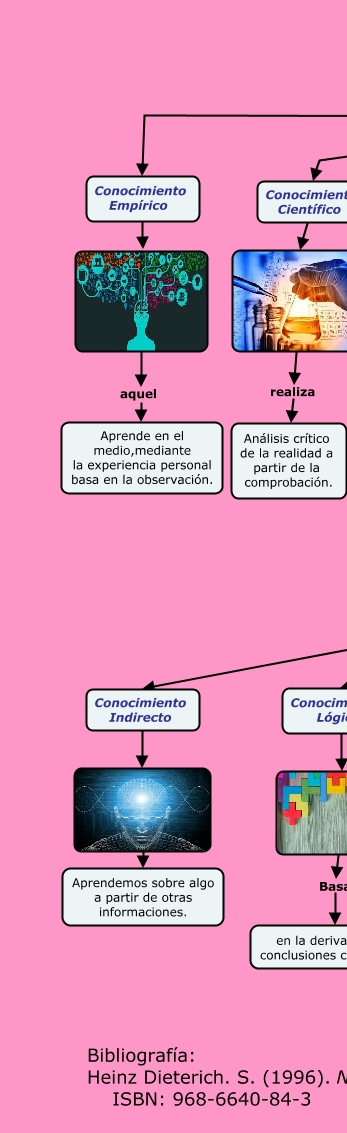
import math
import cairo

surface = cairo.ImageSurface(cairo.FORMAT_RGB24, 347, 1133)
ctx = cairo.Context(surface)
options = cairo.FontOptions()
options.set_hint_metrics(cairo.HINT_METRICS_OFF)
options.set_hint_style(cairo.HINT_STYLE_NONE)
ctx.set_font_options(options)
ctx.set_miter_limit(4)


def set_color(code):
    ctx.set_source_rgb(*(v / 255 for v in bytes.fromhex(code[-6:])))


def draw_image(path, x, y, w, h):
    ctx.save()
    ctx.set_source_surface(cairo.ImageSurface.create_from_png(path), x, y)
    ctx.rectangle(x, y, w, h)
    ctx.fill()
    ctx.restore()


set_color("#ffffff")
ctx.paint()
draw_image("assets/img1.png", 0, 0, 347, 1133)
surface.write_to_png("output.png")
